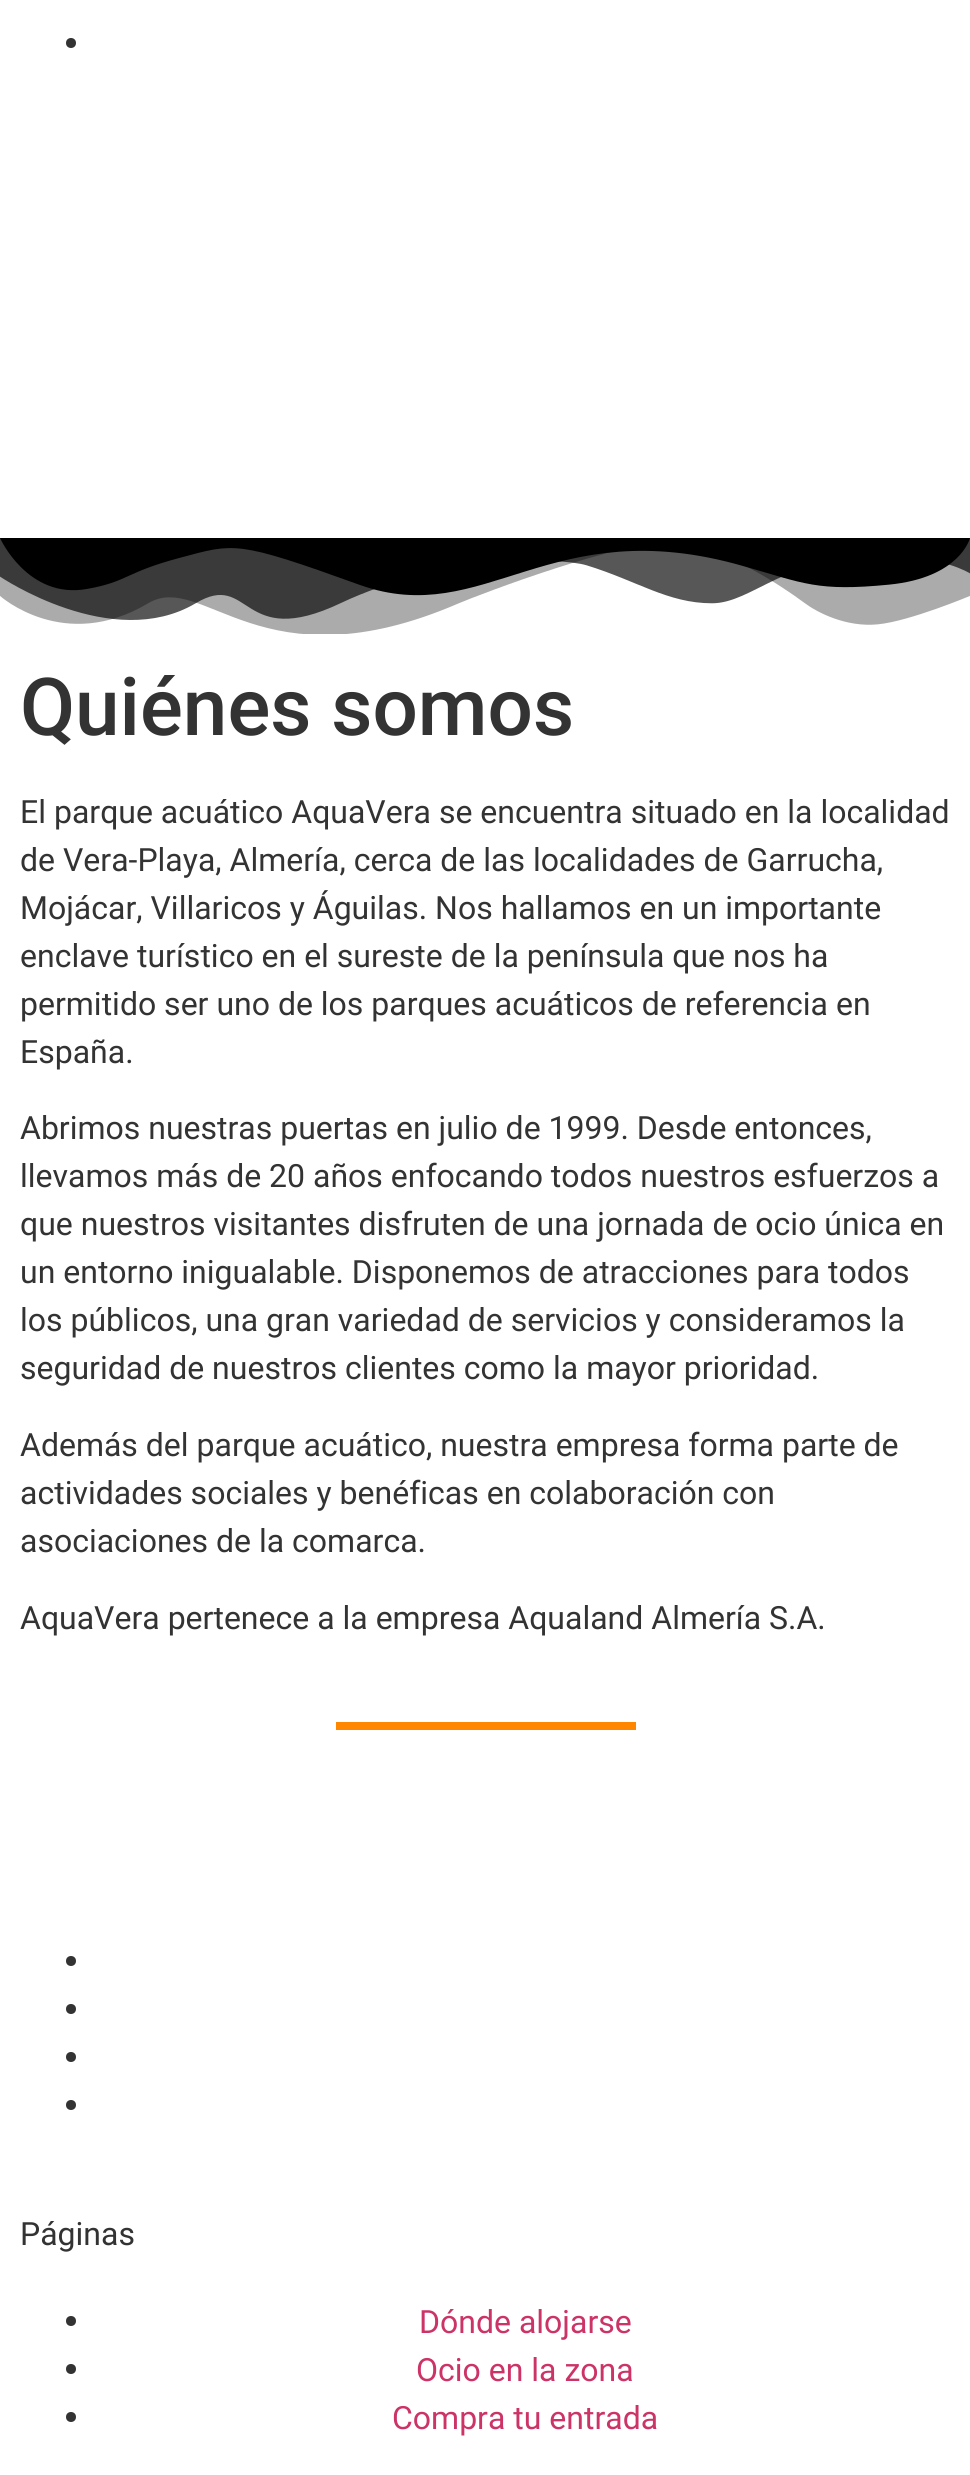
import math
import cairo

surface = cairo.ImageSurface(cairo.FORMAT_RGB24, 970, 2475)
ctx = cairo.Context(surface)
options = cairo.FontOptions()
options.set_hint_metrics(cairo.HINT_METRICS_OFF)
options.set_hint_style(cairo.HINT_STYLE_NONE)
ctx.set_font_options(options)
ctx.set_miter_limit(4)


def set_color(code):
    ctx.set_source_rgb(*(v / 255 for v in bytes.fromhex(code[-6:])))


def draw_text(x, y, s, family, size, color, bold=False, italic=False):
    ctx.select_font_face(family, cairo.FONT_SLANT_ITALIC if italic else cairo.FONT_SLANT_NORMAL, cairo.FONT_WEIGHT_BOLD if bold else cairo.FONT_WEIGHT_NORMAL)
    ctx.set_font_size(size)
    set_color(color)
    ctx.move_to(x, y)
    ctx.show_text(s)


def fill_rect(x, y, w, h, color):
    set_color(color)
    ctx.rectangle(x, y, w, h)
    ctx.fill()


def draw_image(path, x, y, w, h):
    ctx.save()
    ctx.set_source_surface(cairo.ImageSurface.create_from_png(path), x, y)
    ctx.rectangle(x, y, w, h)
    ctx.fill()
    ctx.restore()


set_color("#ffffff")
ctx.paint()
set_color("#333333")
ctx.arc(71, 43, 5, 0, 2 * math.pi)
ctx.fill()
draw_image("assets/img1.png", 0, 538, 970, 96)
draw_text(20, 735, "Quiénes somos", "Roboto Medium", 80, "#333333")
draw_text(20, 823, "El parque acuático AquaVera se encuentra situado en la localidad", "Roboto", 32, "#333333")
draw_text(20, 871, "de Vera-Playa, Almería, cerca de las localidades de Garrucha,", "Roboto", 32, "#333333")
draw_text(20, 919, "Mojácar, Villaricos y Águilas. Nos hallamos en un importante", "Roboto", 32, "#333333")
draw_text(20, 967, "enclave turístico en el sureste de la península que nos ha", "Roboto", 32, "#333333")
draw_text(20, 1015, "permitido ser uno de los parques acuáticos de referencia en", "Roboto", 32, "#333333")
draw_text(20, 1063, "España.", "Roboto", 32, "#333333")
draw_text(20, 1139, "Abrimos nuestras puertas en julio de 1999. Desde entonces,", "Roboto", 32, "#333333")
draw_text(20, 1187, "llevamos más de 20 años enfocando todos nuestros esfuerzos a", "Roboto", 32, "#333333")
draw_text(20, 1235, "que nuestros visitantes disfruten de una jornada de ocio única en", "Roboto", 32, "#333333")
draw_text(20, 1283, "un entorno inigualable. Disponemos de atracciones para todos", "Roboto", 32, "#333333")
draw_text(20, 1331, "los públicos, una gran variedad de servicios y consideramos la", "Roboto", 32, "#333333")
draw_text(20, 1379, "seguridad de nuestros clientes como la mayor prioridad.", "Roboto", 32, "#333333")
draw_text(20, 1456, "Además del parque acuático, nuestra empresa forma parte de", "Roboto", 32, "#333333")
draw_text(20, 1504, "actividades sociales y benéficas en colaboración con", "Roboto", 32, "#333333")
draw_text(20, 1552, "asociaciones de la comarca.", "Roboto", 32, "#333333")
draw_text(20, 1629, "AquaVera pertenece a la empresa Aqualand Almería S.A.", "Roboto", 32, "#333333")
fill_rect(336, 1722, 300, 8, "#ff8700")
set_color("#333333")
ctx.new_path()
ctx.arc(71, 1961, 5, 0, 2 * math.pi)
ctx.fill()
ctx.arc(71, 2009, 5, 0, 2 * math.pi)
ctx.fill()
ctx.arc(71, 2057, 5, 0, 2 * math.pi)
ctx.fill()
ctx.arc(71, 2105, 5, 0, 2 * math.pi)
ctx.fill()
draw_text(20, 2245, "Páginas", "Roboto", 32, "#333333")
ctx.new_path()
ctx.arc(71, 2321, 5, 0, 2 * math.pi)
ctx.fill()
draw_text(419, 2333, "Dónde alojarse", "Roboto", 32, "#cc3366")
set_color("#333333")
ctx.new_path()
ctx.arc(71, 2369, 5, 0, 2 * math.pi)
ctx.fill()
draw_text(416, 2381, "Ocio en la zona", "Roboto", 32, "#cc3366")
set_color("#333333")
ctx.new_path()
ctx.arc(71, 2417, 5, 0, 2 * math.pi)
ctx.fill()
draw_text(392, 2429, "Compra tu entrada", "Roboto", 32, "#cc3366")
surface.write_to_png("output.png")
